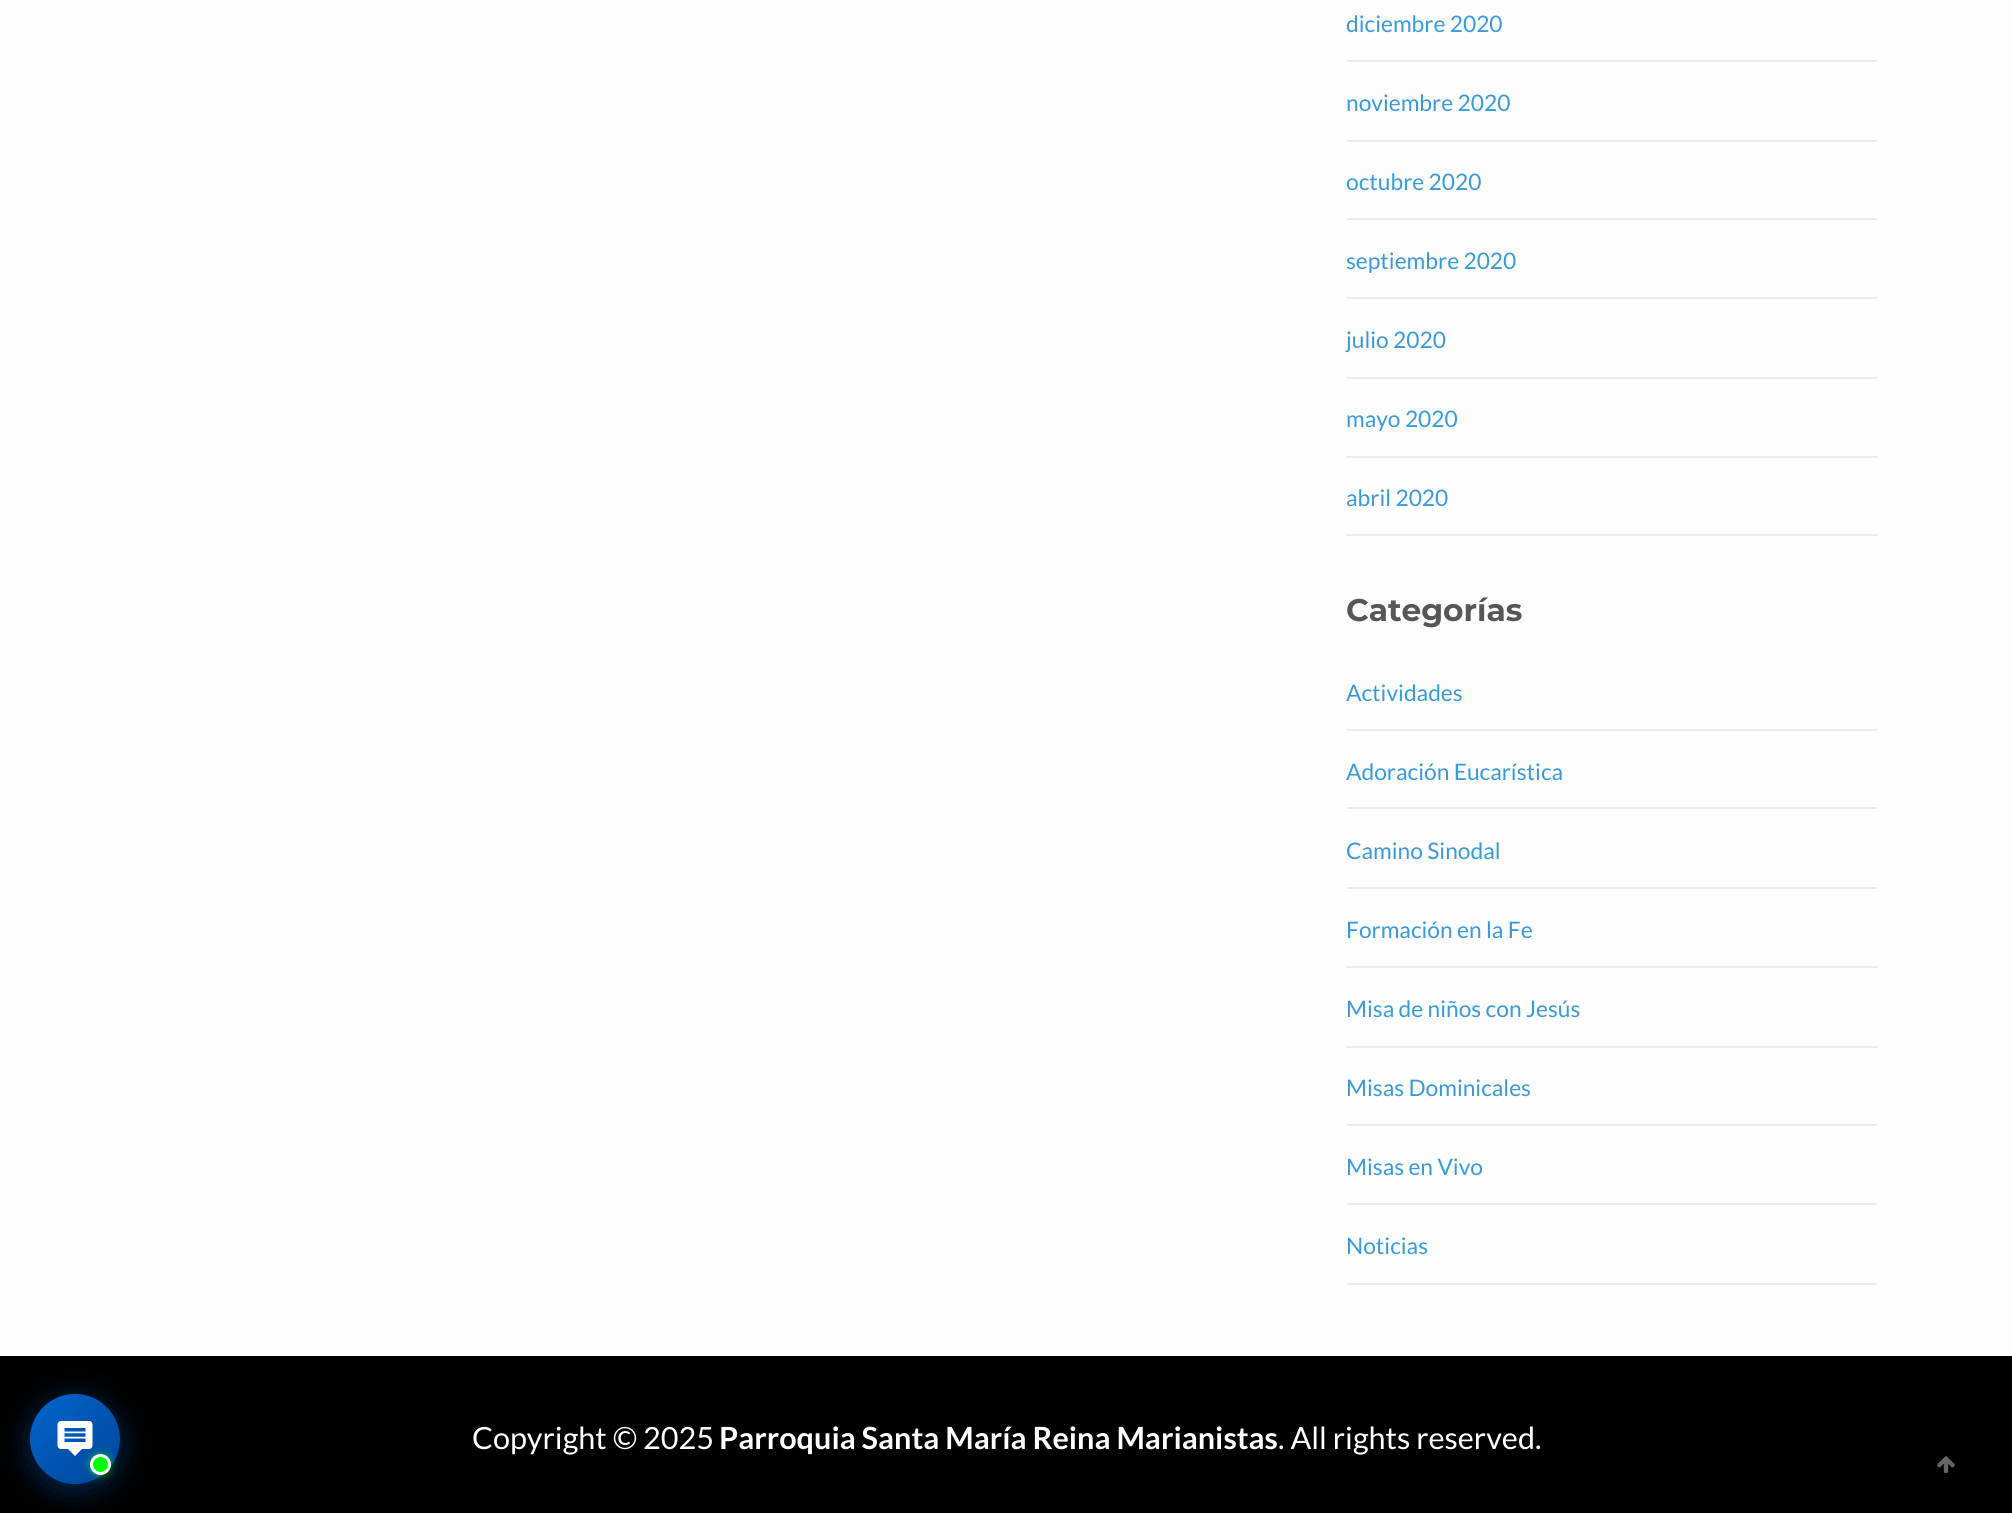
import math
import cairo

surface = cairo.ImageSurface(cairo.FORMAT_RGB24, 2012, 1513)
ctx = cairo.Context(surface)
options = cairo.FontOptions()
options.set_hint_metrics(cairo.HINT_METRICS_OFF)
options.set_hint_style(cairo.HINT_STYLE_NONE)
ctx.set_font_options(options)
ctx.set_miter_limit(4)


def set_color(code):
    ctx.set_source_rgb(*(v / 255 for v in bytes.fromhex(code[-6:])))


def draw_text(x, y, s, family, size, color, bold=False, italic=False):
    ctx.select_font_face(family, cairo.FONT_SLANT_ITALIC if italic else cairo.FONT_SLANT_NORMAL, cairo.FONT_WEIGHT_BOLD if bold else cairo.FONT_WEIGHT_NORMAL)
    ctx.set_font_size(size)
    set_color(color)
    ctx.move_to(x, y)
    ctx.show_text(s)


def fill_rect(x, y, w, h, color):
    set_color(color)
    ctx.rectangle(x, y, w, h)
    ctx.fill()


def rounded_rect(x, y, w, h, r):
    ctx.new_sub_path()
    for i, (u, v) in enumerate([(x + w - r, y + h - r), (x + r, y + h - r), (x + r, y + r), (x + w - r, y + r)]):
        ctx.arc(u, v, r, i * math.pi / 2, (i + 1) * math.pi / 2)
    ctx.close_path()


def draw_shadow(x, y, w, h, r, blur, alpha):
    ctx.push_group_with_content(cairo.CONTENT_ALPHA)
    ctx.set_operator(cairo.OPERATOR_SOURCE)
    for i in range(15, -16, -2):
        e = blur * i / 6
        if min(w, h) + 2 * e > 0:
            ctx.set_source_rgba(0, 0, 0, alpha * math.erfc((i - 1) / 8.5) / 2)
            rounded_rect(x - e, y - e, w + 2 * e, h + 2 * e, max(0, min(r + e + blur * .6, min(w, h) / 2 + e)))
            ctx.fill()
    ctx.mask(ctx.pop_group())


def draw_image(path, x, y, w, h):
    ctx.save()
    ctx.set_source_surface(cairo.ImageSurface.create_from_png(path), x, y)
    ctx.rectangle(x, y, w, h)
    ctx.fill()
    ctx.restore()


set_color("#fdfdfd")
ctx.paint()
fill_rect(1347, 60, 530, 2, "#eaeaea")
draw_text(1346, 32, "diciembre 2020", "Lato", 22.75, "#3a9ad9")
fill_rect(1347, 140, 530, 2, "#eaeaea")
draw_text(1346, 111, "noviembre 2020", "Lato", 22.75, "#3a9ad9")
fill_rect(1347, 218, 530, 2, "#eaeaea")
draw_text(1346, 190, "octubre 2020", "Lato", 22.75, "#3a9ad9")
fill_rect(1347, 297, 530, 2, "#eaeaea")
draw_text(1346, 269, "septiembre 2020", "Lato", 22.75, "#3a9ad9")
fill_rect(1347, 377, 530, 2, "#eaeaea")
draw_text(1346, 348, "julio 2020", "Lato", 22.75, "#3a9ad9")
fill_rect(1347, 456, 530, 2, "#eaeaea")
draw_text(1346, 427, "mayo 2020", "Lato", 22.75, "#3a9ad9")
fill_rect(1347, 534, 530, 2, "#eaeaea")
draw_text(1346, 506, "abril 2020", "Lato", 22.75, "#3a9ad9")
draw_text(1346, 621, "Categorías", "Montserrat", 31.25, "#565656", bold=True)
fill_rect(1347, 729, 530, 2, "#eaeaea")
draw_text(1346, 701, "Actividades", "Lato", 22.75, "#3a9ad9")
fill_rect(1347, 807, 530, 2, "#eaeaea")
draw_text(1346, 780, "Adoración Eucarística", "Lato", 22.75, "#3a9ad9")
fill_rect(1347, 887, 530, 2, "#eaeaea")
draw_text(1346, 859, "Camino Sinodal", "Lato", 22.75, "#3a9ad9")
fill_rect(1347, 966, 530, 2, "#eaeaea")
draw_text(1346, 938, "Formación en la Fe", "Lato", 22.75, "#3a9ad9")
fill_rect(1347, 1046, 530, 2, "#eaeaea")
draw_text(1346, 1017, "Misa de niños con Jesús", "Lato", 22.75, "#3a9ad9")
fill_rect(1347, 1124, 530, 2, "#eaeaea")
draw_text(1346, 1096, "Misas Dominicales", "Lato", 22.75, "#3a9ad9")
fill_rect(1347, 1203, 530, 2, "#eaeaea")
draw_text(1346, 1175, "Misas en Vivo", "Lato", 22.75, "#3a9ad9")
fill_rect(1347, 1283, 530, 2, "#eaeaea")
draw_text(1346, 1254, "Noticias", "Lato", 22.75, "#3a9ad9")
fill_rect(0, 1356, 2012, 157, "#000000")
set_color("#0066cc")
draw_shadow(30, 1400, 90, 90, 45, 15, 0.4)
gradient = cairo.LinearGradient(30, 1394, 120, 1484)
gradient.add_color_stop_rgba(0, 0, 0.4, 0.8, 1)
gradient.add_color_stop_rgba(1, 0, 0.267, 0.6, 1)
ctx.set_source(gradient)
ctx.arc(75, 1439, 45, 0, 2 * math.pi)
ctx.fill()
draw_image("assets/img1.png", 57, 1421, 36, 35)
set_color("#00ff00")
draw_shadow(90, 1454, 21, 21, 10.5, 4, 0.5)
set_color("#00ff00")
ctx.arc(100.5, 1464.5, 9, 0, 2 * math.pi)
ctx.fill_preserve()
set_color("#ffffff")
ctx.set_line_width(3)
ctx.stroke()
draw_text(472, 1449, "Copyright © 2025", "Lato", 30.6, "#ffffff")
draw_text(719, 1449, "Parroquia Santa María Reina Marianistas", "Lato", 30.6, "#ffffff", bold=True)
draw_text(1278, 1449, ". All rights reserved.", "Lato", 30.6, "#ffffff")
draw_image("assets/img2.png", 1937, 1456, 18, 17)
surface.write_to_png("output.png")
